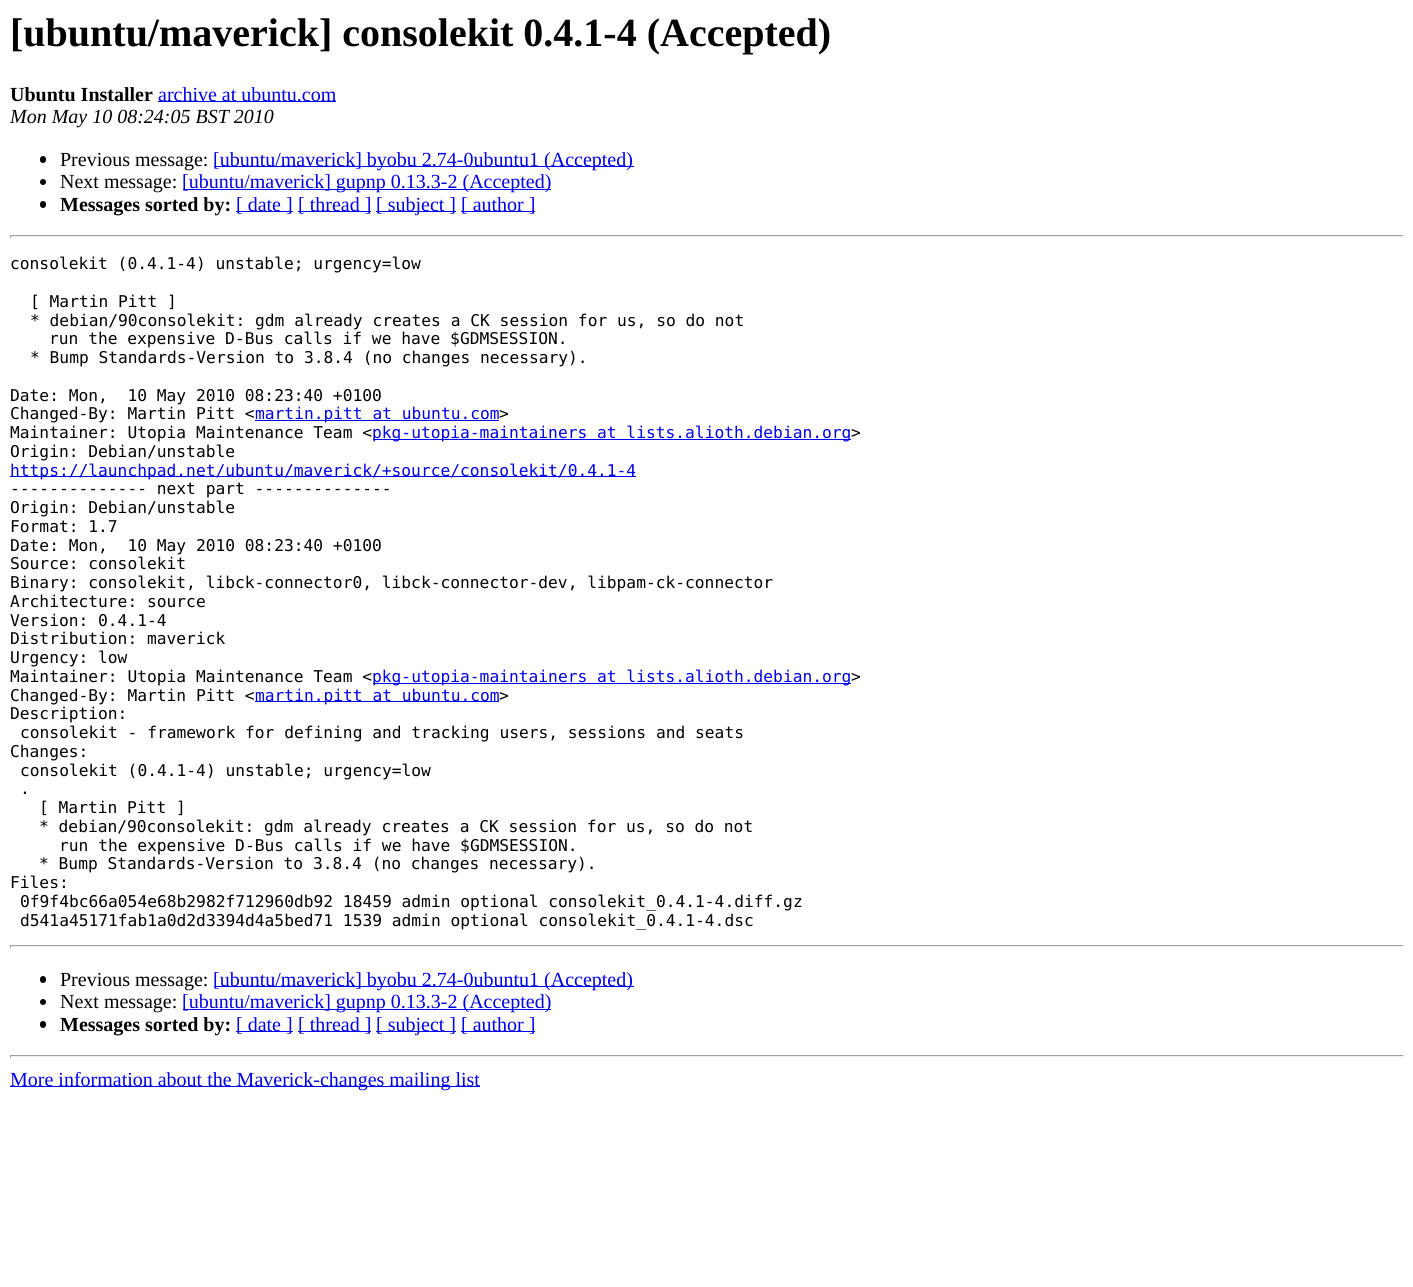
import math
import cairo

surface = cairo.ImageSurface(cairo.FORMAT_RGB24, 1413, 1287)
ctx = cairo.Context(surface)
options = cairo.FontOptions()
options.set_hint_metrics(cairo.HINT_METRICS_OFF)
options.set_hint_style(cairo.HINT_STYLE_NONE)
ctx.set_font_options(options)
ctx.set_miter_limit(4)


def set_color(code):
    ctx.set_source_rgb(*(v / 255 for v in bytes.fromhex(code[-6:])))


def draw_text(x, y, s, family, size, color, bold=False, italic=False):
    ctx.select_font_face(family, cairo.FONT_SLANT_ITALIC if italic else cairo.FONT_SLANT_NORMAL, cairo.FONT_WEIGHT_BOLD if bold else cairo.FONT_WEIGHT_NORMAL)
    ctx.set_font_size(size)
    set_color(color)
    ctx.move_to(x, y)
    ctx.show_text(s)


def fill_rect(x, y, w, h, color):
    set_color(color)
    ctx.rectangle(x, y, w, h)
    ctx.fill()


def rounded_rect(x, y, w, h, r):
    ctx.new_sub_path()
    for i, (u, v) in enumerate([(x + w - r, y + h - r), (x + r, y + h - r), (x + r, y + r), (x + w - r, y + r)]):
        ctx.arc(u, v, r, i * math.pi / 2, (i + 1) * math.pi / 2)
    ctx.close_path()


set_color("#ffffff")
ctx.paint()
draw_text(10, 46, "[ubuntu/maverick] consolekit 0.4.1-4 (Accepted)", "Liberation Serif", 40, "#000000", bold=True)
draw_text(10, 101, "Ubuntu Installer", "Liberation Serif", 20, "#000000", bold=True)
fill_rect(158, 101, 178, 1, "#0000ee")
draw_text(158, 101, "archive at ubuntu.com", "Liberation Serif", 20, "#0000ee")
draw_text(10, 123, "Mon May 10 08:24:05 BST 2010", "Liberation Serif", 20, "#000000", italic=True)
rounded_rect(40, 156, 6, 7, 3)
ctx.fill()
draw_text(60, 166, "Previous message:", "Liberation Serif", 20, "#000000")
fill_rect(214, 166, 420, 1, "#0000ee")
draw_text(213, 166, "[ubuntu/maverick] byobu 2.74-0ubuntu1 (Accepted)", "Liberation Serif", 20, "#0000ee")
set_color("#000000")
ctx.new_path()
ctx.arc(43, 182, 3, 0, 2 * math.pi)
ctx.fill()
draw_text(60, 188, "Next message:", "Liberation Serif", 20, "#000000")
fill_rect(183, 189, 368, 1, "#0000ee")
draw_text(182, 188, "[ubuntu/maverick] gupnp 0.13.3-2 (Accepted)", "Liberation Serif", 20, "#0000ee")
set_color("#000000")
rounded_rect(40, 201, 6, 7, 3)
ctx.fill()
draw_text(60, 211, "Messages sorted by:", "Liberation Serif", 20, "#000000", bold=True)
fill_rect(236, 211, 57, 1, "#0000ee")
draw_text(236, 211, "[ date ]", "Liberation Serif", 20, "#0000ee")
fill_rect(298, 211, 73, 1, "#0000ee")
draw_text(298, 211, "[ thread ]", "Liberation Serif", 20, "#0000ee")
fill_rect(376, 211, 80, 1, "#0000ee")
draw_text(376, 211, "[ subject ]", "Liberation Serif", 20, "#0000ee")
fill_rect(461, 211, 74, 1, "#0000ee")
draw_text(461, 211, "[ author ]", "Liberation Serif", 20, "#0000ee")
fill_rect(10, 235, 1394, 1, "#9f9f9f")
fill_rect(1403, 235, 1, 3, "#eeeeee")
fill_rect(10, 236, 1394, 1, "#eeeeee")
fill_rect(10, 235, 1, 3, "#9f9f9f")
draw_text(10, 269, "consolekit (0.4.1-4) unstable; urgency=low", "DejaVu Sans Mono", 16.25, "#000000")
draw_text(30, 307, "[ Martin Pitt ]", "DejaVu Sans Mono", 16.25, "#000000")
draw_text(30, 326, "* debian/90consolekit: gdm already creates a CK session for us, so do not", "DejaVu Sans Mono", 16.25, "#000000")
draw_text(49, 344, "run the expensive D-Bus calls if we have $GDMSESSION.", "DejaVu Sans Mono", 16.25, "#000000")
draw_text(30, 363, "* Bump Standards-Version to 3.8.4 (no changes necessary).", "DejaVu Sans Mono", 16.25, "#000000")
draw_text(10, 401, "Date: Mon,  10 May 2010 08:23:40 +0100", "DejaVu Sans Mono", 16.25, "#000000")
draw_text(10, 419, "Changed-By: Martin Pitt <", "DejaVu Sans Mono", 16.25, "#000000")
fill_rect(255, 420, 244, 1, "#0000ee")
draw_text(255, 419, "martin.pitt at ubuntu.com", "DejaVu Sans Mono", 16.25, "#0000ee")
draw_text(499, 419, ">", "DejaVu Sans Mono", 16.25, "#000000")
draw_text(10, 438, "Maintainer: Utopia Maintenance Team <", "DejaVu Sans Mono", 16.25, "#000000")
fill_rect(373, 439, 478, 1, "#0000ee")
draw_text(372, 438, "pkg-utopia-maintainers at lists.alioth.debian.org", "DejaVu Sans Mono", 16.25, "#0000ee")
draw_text(851, 438, ">", "DejaVu Sans Mono", 16.25, "#000000")
draw_text(10, 457, "Origin: Debian/unstable", "DejaVu Sans Mono", 16.25, "#000000")
fill_rect(10, 476, 626, 1, "#0000ee")
draw_text(10, 476, "https://launchpad.net/ubuntu/maverick/+source/consolekit/0.4.1-4", "DejaVu Sans Mono", 16.25, "#0000ee")
draw_text(10, 494, "-------------- next part --------------", "DejaVu Sans Mono", 16.25, "#000000")
draw_text(10, 513, "Origin: Debian/unstable", "DejaVu Sans Mono", 16.25, "#000000")
draw_text(10, 532, "Format: 1.7", "DejaVu Sans Mono", 16.25, "#000000")
draw_text(10, 551, "Date: Mon,  10 May 2010 08:23:40 +0100", "DejaVu Sans Mono", 16.25, "#000000")
draw_text(10, 569, "Source: consolekit", "DejaVu Sans Mono", 16.25, "#000000")
draw_text(10, 588, "Binary: consolekit, libck-connector0, libck-connector-dev, libpam-ck-connector", "DejaVu Sans Mono", 16.25, "#000000")
draw_text(10, 607, "Architecture: source", "DejaVu Sans Mono", 16.25, "#000000")
draw_text(10, 626, "Version: 0.4.1-4", "DejaVu Sans Mono", 16.25, "#000000")
draw_text(10, 644, "Distribution: maverick", "DejaVu Sans Mono", 16.25, "#000000")
draw_text(10, 663, "Urgency: low", "DejaVu Sans Mono", 16.25, "#000000")
draw_text(10, 682, "Maintainer: Utopia Maintenance Team <", "DejaVu Sans Mono", 16.25, "#000000")
fill_rect(373, 683, 478, 1, "#0000ee")
draw_text(372, 682, "pkg-utopia-maintainers at lists.alioth.debian.org", "DejaVu Sans Mono", 16.25, "#0000ee")
draw_text(851, 682, ">", "DejaVu Sans Mono", 16.25, "#000000")
draw_text(10, 701, "Changed-By: Martin Pitt <", "DejaVu Sans Mono", 16.25, "#000000")
fill_rect(255, 701, 244, 1, "#0000ee")
draw_text(255, 701, "martin.pitt at ubuntu.com", "DejaVu Sans Mono", 16.25, "#0000ee")
draw_text(499, 701, ">", "DejaVu Sans Mono", 16.25, "#000000")
draw_text(10, 719, "Description:", "DejaVu Sans Mono", 16.25, "#000000")
draw_text(20, 738, "consolekit - framework for defining and tracking users, sessions and seats", "DejaVu Sans Mono", 16.25, "#000000")
draw_text(10, 757, "Changes:", "DejaVu Sans Mono", 16.25, "#000000")
draw_text(20, 776, "consolekit (0.4.1-4) unstable; urgency=low", "DejaVu Sans Mono", 16.25, "#000000")
draw_text(20, 794, ".", "DejaVu Sans Mono", 16.25, "#000000")
draw_text(39, 813, "[ Martin Pitt ]", "DejaVu Sans Mono", 16.25, "#000000")
draw_text(39, 832, "* debian/90consolekit: gdm already creates a CK session for us, so do not", "DejaVu Sans Mono", 16.25, "#000000")
draw_text(59, 851, "run the expensive D-Bus calls if we have $GDMSESSION.", "DejaVu Sans Mono", 16.25, "#000000")
draw_text(39, 869, "* Bump Standards-Version to 3.8.4 (no changes necessary).", "DejaVu Sans Mono", 16.25, "#000000")
draw_text(10, 888, "Files:", "DejaVu Sans Mono", 16.25, "#000000")
draw_text(20, 907, "0f9f4bc66a054e68b2982f712960db92 18459 admin optional consolekit_0.4.1-4.diff.gz", "DejaVu Sans Mono", 16.25, "#000000")
draw_text(20, 926, "d541a45171fab1a0d2d3394d4a5bed71 1539 admin optional consolekit_0.4.1-4.dsc", "DejaVu Sans Mono", 16.25, "#000000")
fill_rect(10, 945, 1394, 1, "#9f9f9f")
fill_rect(1403, 945, 1, 3, "#eeeeee")
fill_rect(10, 946, 1394, 1, "#eeeeee")
fill_rect(10, 945, 1, 3, "#9f9f9f")
set_color("#000000")
rounded_rect(40, 976, 6, 7, 3)
ctx.fill()
draw_text(60, 986, "Previous message:", "Liberation Serif", 20, "#000000")
fill_rect(214, 986, 420, 1, "#0000ee")
draw_text(213, 986, "[ubuntu/maverick] byobu 2.74-0ubuntu1 (Accepted)", "Liberation Serif", 20, "#0000ee")
set_color("#000000")
ctx.new_path()
ctx.arc(43, 1002, 3, 0, 2 * math.pi)
ctx.fill()
draw_text(60, 1008, "Next message:", "Liberation Serif", 20, "#000000")
fill_rect(183, 1009, 368, 1, "#0000ee")
draw_text(182, 1008, "[ubuntu/maverick] gupnp 0.13.3-2 (Accepted)", "Liberation Serif", 20, "#0000ee")
set_color("#000000")
rounded_rect(40, 1021, 6, 7, 3)
ctx.fill()
draw_text(60, 1031, "Messages sorted by:", "Liberation Serif", 20, "#000000", bold=True)
fill_rect(236, 1031, 57, 1, "#0000ee")
draw_text(236, 1031, "[ date ]", "Liberation Serif", 20, "#0000ee")
fill_rect(298, 1031, 73, 1, "#0000ee")
draw_text(298, 1031, "[ thread ]", "Liberation Serif", 20, "#0000ee")
fill_rect(376, 1031, 80, 1, "#0000ee")
draw_text(376, 1031, "[ subject ]", "Liberation Serif", 20, "#0000ee")
fill_rect(461, 1031, 74, 1, "#0000ee")
draw_text(461, 1031, "[ author ]", "Liberation Serif", 20, "#0000ee")
fill_rect(10, 1055, 1394, 1, "#9f9f9f")
fill_rect(1403, 1055, 1, 3, "#eeeeee")
fill_rect(10, 1056, 1394, 1, "#eeeeee")
fill_rect(10, 1055, 1, 3, "#9f9f9f")
fill_rect(10, 1086, 470, 1, "#0000ee")
draw_text(10, 1086, "More information about the Maverick-changes mailing list", "Liberation Serif", 20, "#0000ee")
surface.write_to_png("output.png")
